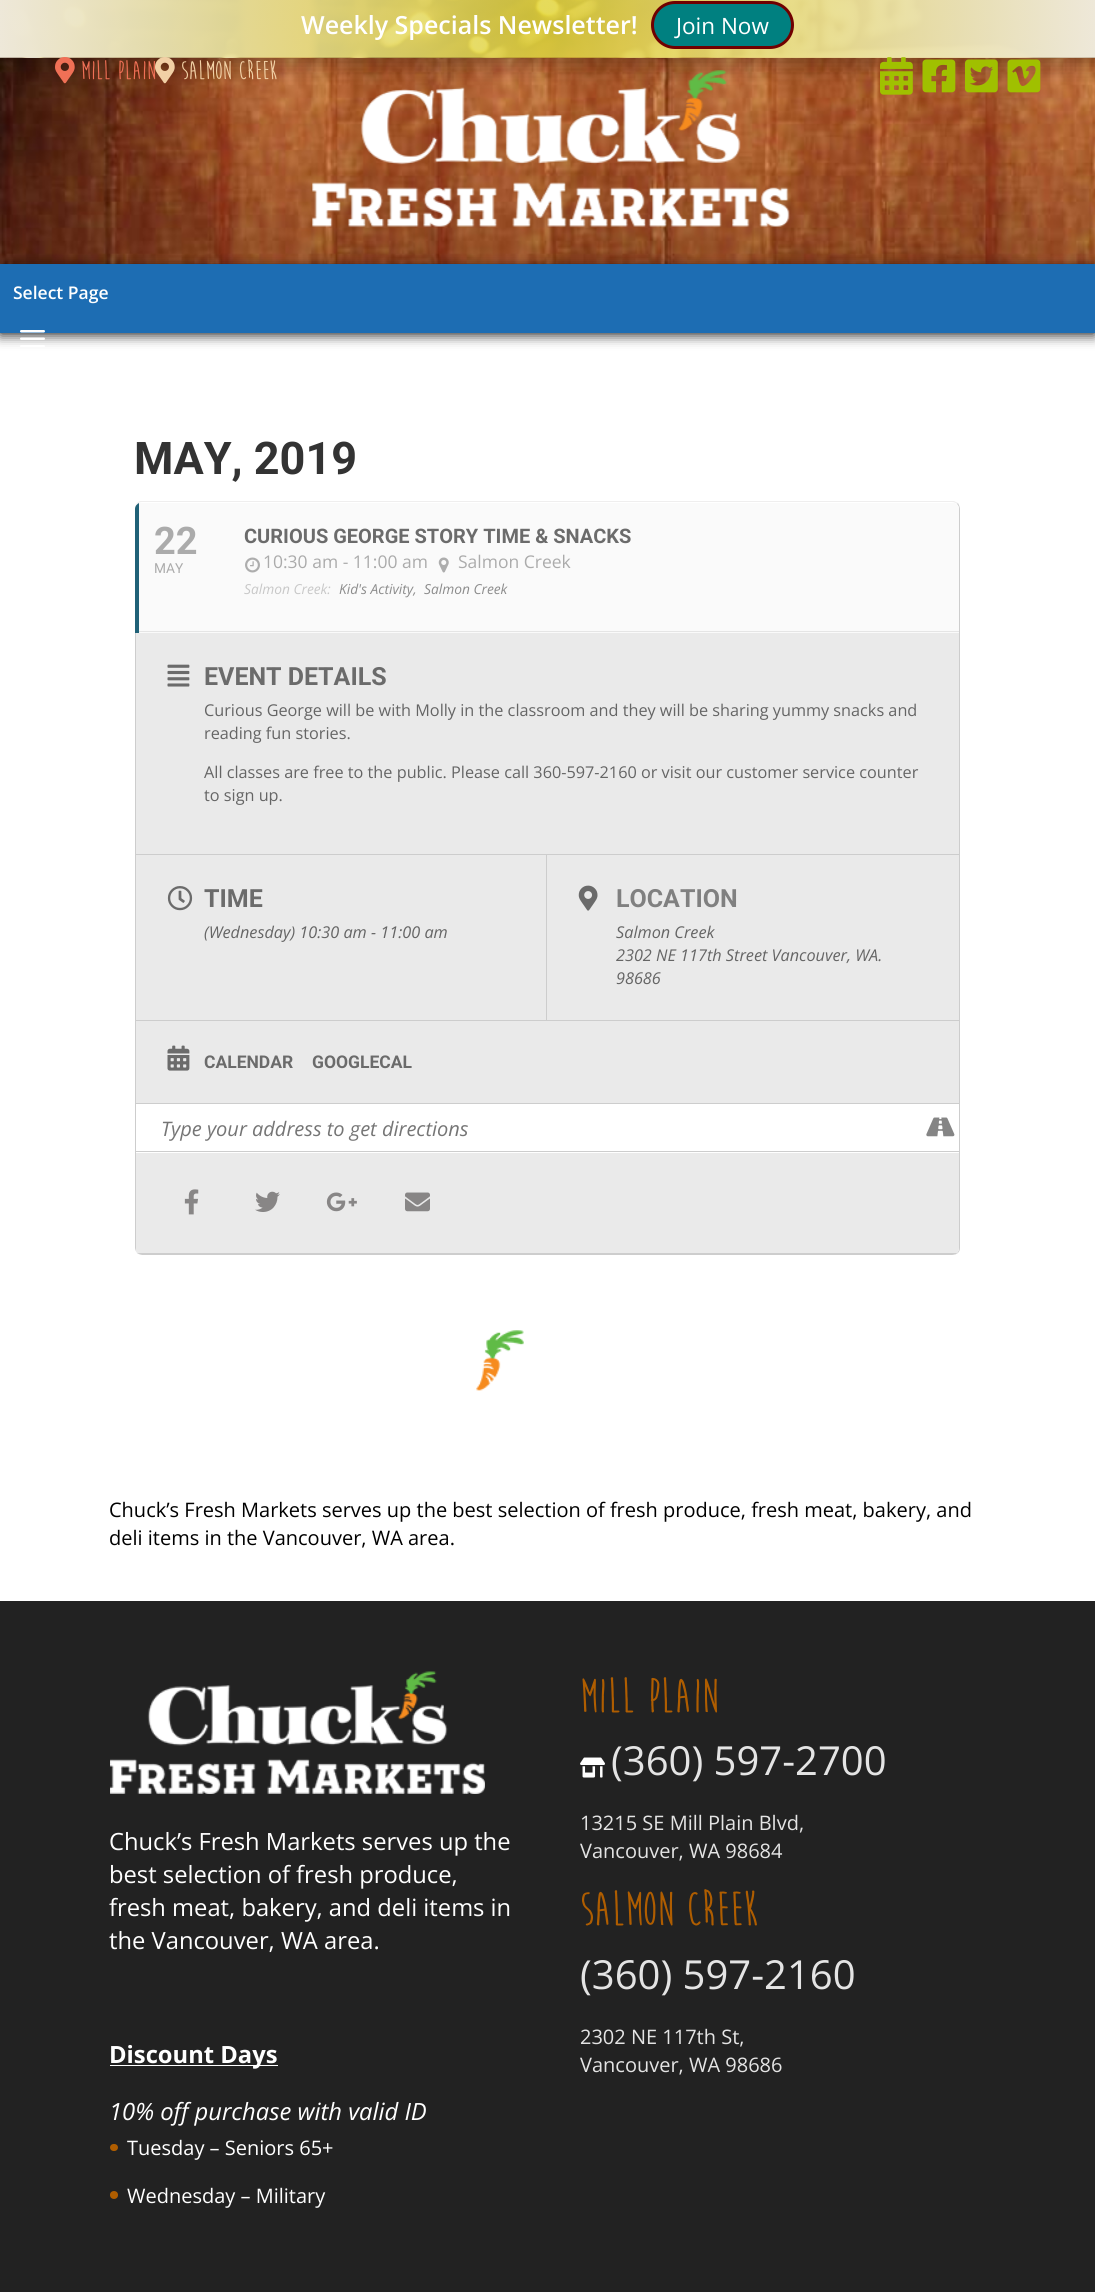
import math
import cairo

surface = cairo.ImageSurface(cairo.FORMAT_RGB24, 1095, 2292)
ctx = cairo.Context(surface)
options = cairo.FontOptions()
options.set_hint_metrics(cairo.HINT_METRICS_OFF)
options.set_hint_style(cairo.HINT_STYLE_NONE)
ctx.set_font_options(options)
ctx.set_miter_limit(4)


def set_color(code):
    ctx.set_source_rgb(*(v / 255 for v in bytes.fromhex(code[-6:])))


def draw_text(x, y, s, family, size, color, bold=False, italic=False):
    ctx.select_font_face(family, cairo.FONT_SLANT_ITALIC if italic else cairo.FONT_SLANT_NORMAL, cairo.FONT_WEIGHT_BOLD if bold else cairo.FONT_WEIGHT_NORMAL)
    ctx.set_font_size(size)
    set_color(color)
    ctx.move_to(x, y)
    ctx.show_text(s)


def fill_rect(x, y, w, h, color):
    set_color(color)
    ctx.rectangle(x, y, w, h)
    ctx.fill()


def rounded_rect(x, y, w, h, r):
    ctx.new_sub_path()
    for i, (u, v) in enumerate([(x + w - r, y + h - r), (x + r, y + h - r), (x + r, y + r), (x + w - r, y + r)]):
        ctx.arc(u, v, r, i * math.pi / 2, (i + 1) * math.pi / 2)
    ctx.close_path()


def draw_shadow(x, y, w, h, r, blur, alpha):
    ctx.push_group_with_content(cairo.CONTENT_ALPHA)
    ctx.set_operator(cairo.OPERATOR_SOURCE)
    for i in range(15, -16, -2):
        e = blur * i / 6
        if min(w, h) + 2 * e > 0:
            ctx.set_source_rgba(0, 0, 0, alpha * math.erfc((i - 1) / 8.5) / 2)
            rounded_rect(x - e, y - e, w + 2 * e, h + 2 * e, max(0, min(r + e + blur * .6, min(w, h) / 2 + e)))
            ctx.fill()
    ctx.mask(ctx.pop_group())


def draw_image(path, x, y, w, h):
    ctx.save()
    ctx.set_source_surface(cairo.ImageSurface.create_from_png(path), x, y)
    ctx.rectangle(x, y, w, h)
    ctx.fill()
    ctx.restore()


set_color("#ffffff")
ctx.paint()
ctx.set_source_rgba(0, 0, 0, 0.1)
ctx.rectangle(0, 333, 1095, 1)
ctx.fill()
draw_image("assets/img1.png", 0, 57, 1095, 207)
set_color("#000000")
draw_shadow(8, 1, 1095, 64, 0, 11, 0.3)
draw_image("assets/img2.png", 0, 0, 1095, 58)
draw_text(301, 34, "Weekly Specials Newsletter!", "Open Sans SemiBold", 25, "#ffffff")
set_color("#008080")
rounded_rect(652.5, 2.5, 140, 45, 22.5)
ctx.fill_preserve()
set_color("#700000")
ctx.set_line_width(3)
ctx.stroke()
draw_text(676, 34, "Join Now", "Open Sans", 22.5, "#ffffff")
draw_image("assets/img3.png", 55, 57, 20, 27)
draw_text(81, 79, "mill plain", "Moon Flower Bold", 26.5, "#f07056", bold=True)
draw_image("assets/img4.png", 155, 57, 20, 27)
draw_text(181, 79, "salmon creek", "Moon Flower Bold", 26.5, "#f1d0a5", bold=True)
draw_image("assets/img5.png", 312, 70, 478, 157)
draw_image("assets/img6.png", 880, 57, 33, 38)
draw_image("assets/img7.png", 922, 59, 34, 34)
draw_image("assets/img8.png", 965, 59, 33, 34)
draw_image("assets/img9.png", 1007, 59, 34, 34)
set_color("#000000")
draw_shadow(0, 268, 1095, 68, 0, 6, 0.75)
fill_rect(0, 264, 1095, 69, "#1d6db3")
draw_text(13, 299, "Select Page", "Open Sans SemiBold", 17.5, "#ffffff")
draw_image("assets/img10.png", 20, 330, 25, 17)
draw_text(134, 474, "MAY, 2019", "Roboto", 45, "#333333", bold=True)
set_color("#efeeee")
ctx.new_path()
ctx.move_to(954, 501)
ctx.line_to(140, 501)
ctx.curve_to(137, 502, 135, 505, 135, 509)
ctx.curve_to(135, 505, 138, 502, 142, 502)
ctx.line_to(952, 502)
ctx.curve_to(954, 502, 956, 503, 957, 504)
ctx.line_to(958, 503)
ctx.close_path()
ctx.fill()
set_color("#cdcdcd")
ctx.new_path()
ctx.move_to(958, 503)
ctx.line_to(957, 504)
ctx.curve_to(958, 505, 959, 507, 959, 509)
ctx.line_to(959, 1248)
ctx.curve_to(959, 1252, 956, 1255, 952, 1255)
ctx.curve_to(957, 1255, 960, 1252, 960, 1248)
ctx.line_to(960, 509)
ctx.curve_to(960, 507, 959, 505, 958, 503)
ctx.close_path()
ctx.fill()
set_color("#fafafa")
ctx.new_path()
ctx.move_to(135, 509)
ctx.line_to(135, 633)
ctx.line_to(959, 633)
ctx.line_to(959, 509)
ctx.curve_to(959, 506, 957, 504, 955, 503)
ctx.line_to(140, 503)
ctx.curve_to(137, 504, 135, 506, 135, 509)
ctx.close_path()
ctx.fill()
set_color("#206177")
ctx.new_path()
ctx.move_to(135, 509)
ctx.line_to(135, 633)
ctx.line_to(139, 633)
ctx.line_to(139, 503)
ctx.curve_to(137, 504, 135, 506, 135, 509)
ctx.close_path()
ctx.fill()
draw_text(154, 554, "22", "Roboto", 38, "#ababab", bold=True)
draw_text(154, 573, "MAY", "Roboto", 13.75, "#ababab")
draw_text(244, 543, "CURIOUS GEORGE STORY TIME & SNACKS", "Roboto", 20, "#6b6b6b", bold=True)
draw_image("assets/img11.png", 245, 557, 15, 16)
draw_text(263, 568, "10:30 am - 11:00 am", "Open Sans", 17.5, "#ababab")
draw_image("assets/img12.png", 438, 557, 11, 16)
draw_text(458, 568, "Salmon Creek", "Open Sans", 17.5, "#ababab")
draw_text(244, 594, "Salmon Creek:", "Open Sans", 13.75, "#c8c8c8", italic=True)
draw_text(339, 594, "Kid's Activity,", "Open Sans", 13.75, "#8c8c8c", italic=True)
draw_text(424, 594, "Salmon Creek", "Open Sans", 13.75, "#8c8c8c", italic=True)
fill_rect(139, 631, 820, 1, "#e5e5e5")
set_color("#eaeaea")
ctx.new_path()
ctx.move_to(135, 633)
ctx.line_to(135, 1248)
ctx.curve_to(135, 1252, 138, 1255, 142, 1255)
ctx.line_to(952, 1255)
ctx.curve_to(956, 1255, 959, 1252, 959, 1248)
ctx.line_to(959, 633)
ctx.close_path()
ctx.fill()
set_color("#cdcdcd")
ctx.new_path()
ctx.move_to(142, 1255)
ctx.line_to(952, 1255)
ctx.line_to(956, 1254)
ctx.line_to(139, 1254)
ctx.close_path()
ctx.fill()
ctx.new_path()
ctx.move_to(135, 633)
ctx.line_to(135, 1248)
ctx.line_to(136, 1251)
ctx.line_to(136, 633)
ctx.close_path()
ctx.fill()
fill_rect(136, 854, 823, 1, "#cdcdcd")
draw_image("assets/img13.png", 167, 664, 23, 23)
draw_text(204, 685, "EVENT DETAILS", "Roboto", 25, "#6b6b6b", bold=True)
draw_text(204, 716, "Curious George will be with Molly in the classroom and they will be sharing yummy snacks and", "Open Sans", 16.25, "#656565")
draw_text(204, 739, "reading fun stories.", "Open Sans", 16.25, "#656565")
draw_text(204, 778, "All classes are free to the public. Please call 360-597-2160 or visit our customer service counter", "Open Sans", 16.25, "#656565")
draw_text(204, 801, "to sign up.", "Open Sans", 16.25, "#656565")
fill_rect(136, 1020, 823, 1, "#cdcdcd")
fill_rect(546, 855, 1, 165, "#cdcdcd")
draw_image("assets/img14.png", 167, 886, 26, 25)
draw_text(204, 907, "TIME", "Roboto", 25, "#6b6b6b", bold=True)
draw_text(204, 938, "(Wednesday) 10:30 am - 11:00 am", "Open Sans", 16.25, "#656565", italic=True)
draw_image("assets/img15.png", 578, 885, 20, 26)
draw_text(616, 907, "LOCATION", "Roboto", 25, "#808080", bold=True)
draw_text(616, 938, "Salmon Creek", "Open Sans", 16.25, "#656565", italic=True)
draw_text(616, 961, "2302 NE 117th Street Vancouver, WA.", "Open Sans", 16.25, "#656565", italic=True)
draw_text(616, 984, "98686", "Open Sans", 16.25, "#656565", italic=True)
fill_rect(136, 1103, 823, 1, "#cdcdcd")
draw_image("assets/img16.png", 167, 1045, 23, 26)
draw_text(204, 1068, "CALENDAR", "Roboto", 17.5, "#6b6b6b", bold=True)
draw_text(312, 1068, "GOOGLECAL", "Roboto", 17.5, "#6b6b6b", bold=True)
fill_rect(136, 1104, 823, 49, "#ffffff")
fill_rect(136, 1151, 823, 1, "#cdcdcd")
draw_text(161, 1136, "Type your address to get directions", "Open Sans", 20, "#757575", italic=True)
draw_image("assets/img17.png", 926, 1117, 29, 20)
set_color("#cdcdcd")
ctx.new_path()
ctx.move_to(139, 1254)
ctx.line_to(137, 1253)
ctx.line_to(957, 1253)
ctx.line_to(956, 1254)
ctx.close_path()
ctx.fill()
draw_image("assets/img18.png", 184, 1189, 15, 26)
draw_image("assets/img19.png", 255, 1191, 25, 21)
draw_image("assets/img20.png", 326, 1192, 31, 20)
draw_image("assets/img21.png", 405, 1192, 25, 20)
draw_image("assets/img22.png", 476, 1330, 48, 61)
draw_text(109, 1517, "Chuck’s Fresh Markets serves up the best selection of fresh produce, fresh meat, bakery, and", "Open Sans", 20, "#000000")
draw_text(109, 1545, "deli items in the Vancouver, WA area.", "Open Sans", 20, "#000000")
fill_rect(0, 1601, 1095, 691, "#222222")
draw_image("assets/img23.png", 110, 1671, 375, 123)
draw_text(109, 1850, "Chuck’s Fresh Markets serves up the", "Open Sans", 23.75, "#ffffff")
draw_text(109, 1883, "best selection of fresh produce,", "Open Sans", 23.75, "#ffffff")
draw_text(109, 1916, "fresh meat, bakery, and deli items in", "Open Sans", 23.75, "#ffffff")
draw_text(109, 1949, "the Vancouver, WA area.", "Open Sans", 23.75, "#ffffff")
fill_rect(110, 2065, 168, 1, "#ffffff")
draw_text(109, 2063, "Discount Days", "Open Sans", 23.75, "#ffffff", bold=True)
draw_text(109, 2120, "10% off purchase with valid ID", "Open Sans", 23.75, "#ffffff", italic=True)
set_color("#af5d00")
rounded_rect(110, 2144, 8, 7, 3.5)
ctx.fill()
draw_text(127, 2155, "Tuesday – Seniors 65+", "Open Sans", 20, "#ffffff")
set_color("#af5d00")
ctx.new_path()
ctx.arc(114, 2195, 4, 0, 2 * math.pi)
ctx.fill()
draw_text(127, 2203, "Wednesday – Military", "Open Sans", 20, "#ffffff")
draw_text(580, 1712, "MILL PLAIN", "Moon Flower Bold", 49, "#af5d00", bold=True)
draw_image("assets/img24.png", 580, 1757, 25, 21)
draw_text(611, 1775, "(360) 597-2700", "Open Sans", 40, "#e4e4e4")
draw_text(580, 1830, "13215 SE Mill Plain Blvd,", "Open Sans", 20, "#e4e4e4")
draw_text(580, 1858, "Vancouver, WA 98684", "Open Sans", 20, "#e4e4e4")
draw_text(580, 1925, "SALMON CREEK", "Moon Flower Bold", 49, "#af5d00", bold=True)
draw_text(580, 1989, "(360) 597-2160", "Open Sans", 40, "#e4e4e4")
draw_text(580, 2044, "2302 NE 117th St,", "Open Sans", 20, "#e4e4e4")
draw_text(580, 2072, "Vancouver, WA 98686", "Open Sans", 20, "#e4e4e4")
surface.write_to_png("output.png")
